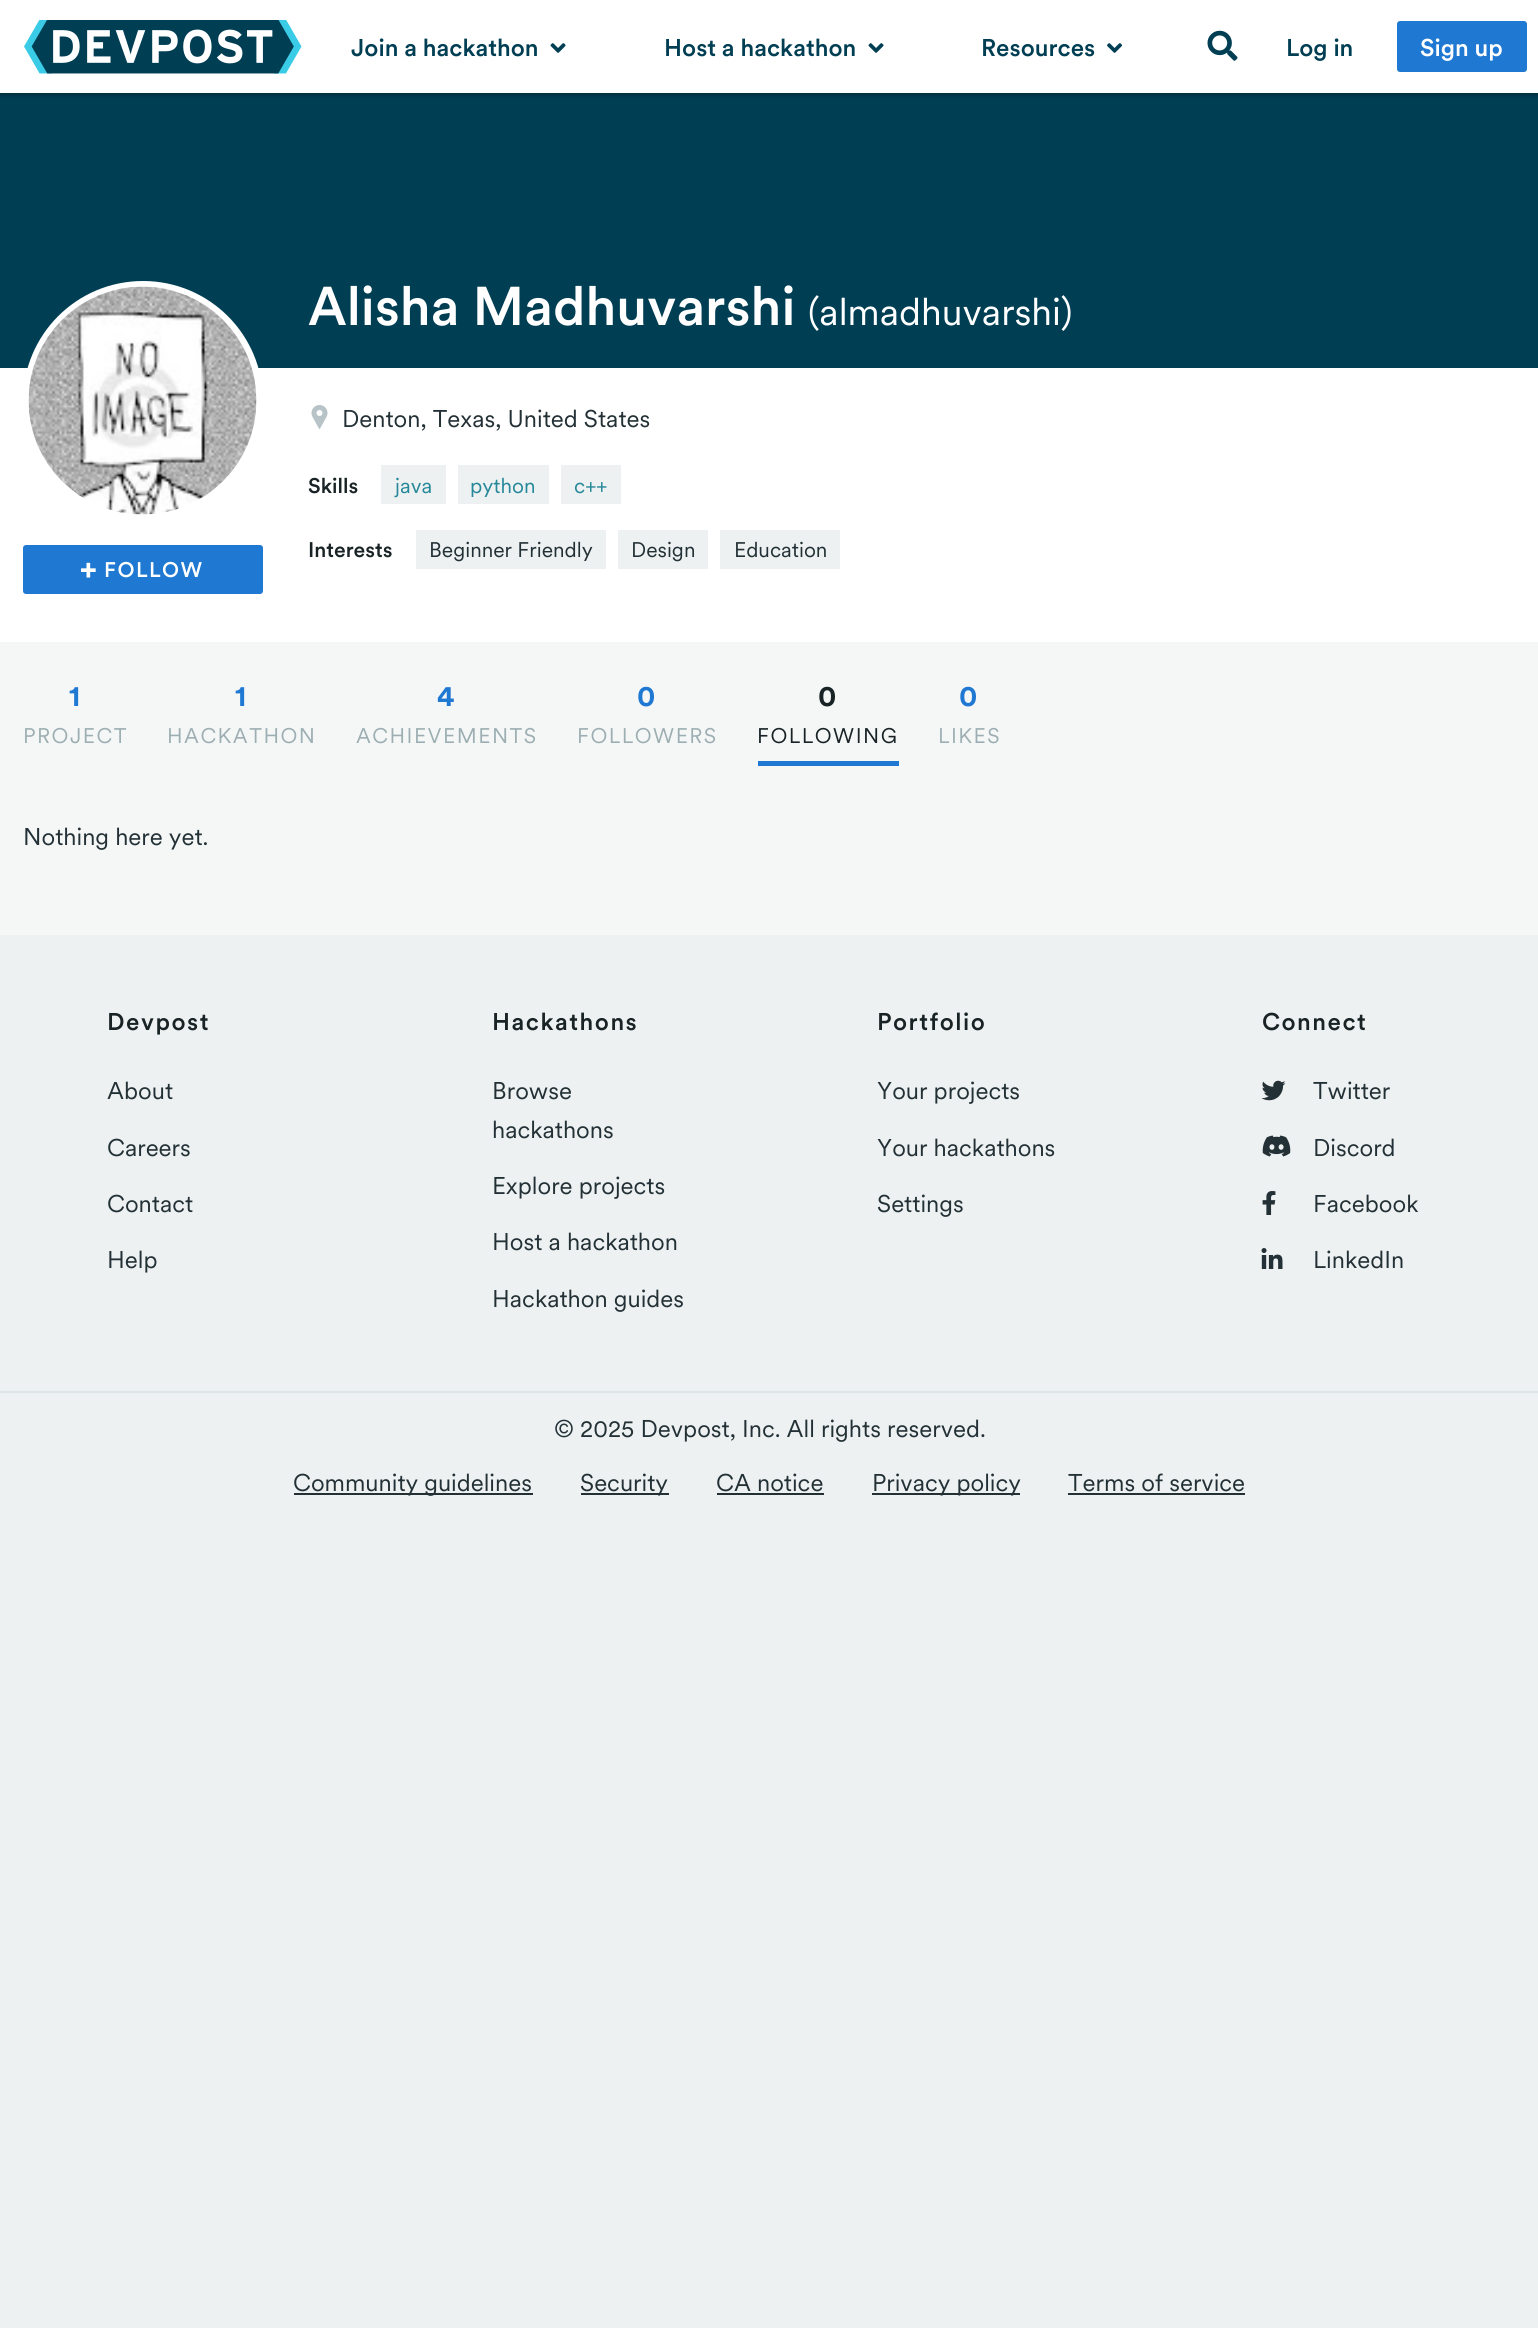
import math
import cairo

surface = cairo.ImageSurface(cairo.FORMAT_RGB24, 1538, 2328)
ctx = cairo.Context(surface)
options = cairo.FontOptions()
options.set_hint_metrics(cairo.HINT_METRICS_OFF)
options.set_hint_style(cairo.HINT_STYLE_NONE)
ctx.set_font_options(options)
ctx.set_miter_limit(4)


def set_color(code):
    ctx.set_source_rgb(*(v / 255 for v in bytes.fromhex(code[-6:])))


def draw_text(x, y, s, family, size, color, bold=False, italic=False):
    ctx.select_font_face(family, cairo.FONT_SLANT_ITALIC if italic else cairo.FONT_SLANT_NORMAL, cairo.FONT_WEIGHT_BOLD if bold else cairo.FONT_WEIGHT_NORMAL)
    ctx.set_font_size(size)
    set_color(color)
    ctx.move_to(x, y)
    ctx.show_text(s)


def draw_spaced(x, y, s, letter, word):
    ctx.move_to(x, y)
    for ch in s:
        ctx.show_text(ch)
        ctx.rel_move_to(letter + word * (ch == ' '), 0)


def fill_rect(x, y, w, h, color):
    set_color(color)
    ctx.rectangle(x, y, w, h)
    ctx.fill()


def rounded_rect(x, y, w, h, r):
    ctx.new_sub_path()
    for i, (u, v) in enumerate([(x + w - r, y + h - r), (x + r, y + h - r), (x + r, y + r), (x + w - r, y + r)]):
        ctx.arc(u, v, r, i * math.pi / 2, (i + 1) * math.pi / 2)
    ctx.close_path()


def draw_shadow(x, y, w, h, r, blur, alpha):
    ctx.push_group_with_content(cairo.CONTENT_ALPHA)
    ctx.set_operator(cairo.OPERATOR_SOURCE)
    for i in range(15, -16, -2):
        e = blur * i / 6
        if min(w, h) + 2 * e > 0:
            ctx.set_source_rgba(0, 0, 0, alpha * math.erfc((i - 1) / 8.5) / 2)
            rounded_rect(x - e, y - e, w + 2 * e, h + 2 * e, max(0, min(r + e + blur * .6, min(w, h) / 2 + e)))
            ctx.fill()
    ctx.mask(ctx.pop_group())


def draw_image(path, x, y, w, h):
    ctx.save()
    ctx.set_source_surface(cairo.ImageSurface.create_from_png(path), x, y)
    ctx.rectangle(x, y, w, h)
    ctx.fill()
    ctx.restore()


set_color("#edf1f2")
ctx.paint()
fill_rect(0, 0, 1538, 642, "#ffffff")
fill_rect(0, 93, 1538, 275, "#003e54")
ctx.save()
ctx.rectangle(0, 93, 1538, 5)
ctx.clip()
set_color("#000000")
draw_shadow(0, 2, 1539, 93, 0, 2, 0.3)
ctx.restore()
draw_image("assets/img1.png", 24, 20, 278, 54)
draw_text(351, 56, "Join a hackathon", "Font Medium", 24, "#003e54")
draw_image("assets/img2.png", 550, 43, 16, 10)
draw_text(664, 56, "Host a hackathon", "Font Medium", 24, "#003e54")
draw_image("assets/img2.png", 868, 43, 16, 10)
draw_text(981, 56, "Resources", "Font Medium", 24, "#003e54")
draw_image("assets/img3.png", 1107, 43, 15, 10)
draw_image("assets/img4.png", 1207, 30, 31, 31)
draw_text(1286, 56, "Log in", "Font Medium", 24, "#003e54")
set_color("#1f78d1")
rounded_rect(1397, 21, 130, 51, 3)
ctx.fill()
draw_text(1420, 56, "Sign up", "Font Medium", 24, "#ffffff")
draw_text(308, 325, "Alisha Madhuvarshi", "Font Medium", 54, "#ffffff")
draw_text(808, 325, "(almadhuvarshi)", "Font", 37.75, "#ffffff")
draw_image("assets/img5.png", 311, 405, 17, 24)
draw_text(342, 427, "Denton, Texas, United States", "Font", 24, "#233136")
draw_text(308, 493, "Skills", "Font Medium", 21, "#192325")
fill_rect(381, 465, 65, 39, "#edf1f2")
draw_text(395, 493, "java", "Font", 21, "#268899")
fill_rect(458, 465, 91, 39, "#edf1f2")
draw_text(470, 493, "python", "Font", 21, "#268899")
fill_rect(561, 465, 60, 39, "#edf1f2")
draw_text(574, 493, "c++", "Font", 21, "#268899")
draw_text(308, 557, "Interests", "Font Medium", 21, "#192325")
fill_rect(416, 530, 190, 39, "#edf1f2")
draw_text(429, 557, "Beginner Friendly", "Font", 21, "#233136")
fill_rect(618, 530, 90, 39, "#edf1f2")
draw_text(631, 557, "Design", "Font", 21, "#233136")
fill_rect(720, 530, 120, 39, "#edf1f2")
draw_text(734, 557, "Education", "Font", 21, "#233136")
set_color("#ffffff")
ctx.new_path()
ctx.arc(143, 401, 117, 0, 2 * math.pi)
ctx.fill_preserve()
ctx.set_line_width(6)
ctx.stroke()
draw_image("assets/img6.png", 28, 286, 229, 229)
set_color("#1f78d1")
rounded_rect(23, 545, 240, 49, 3)
ctx.fill()
draw_image("assets/img7.png", 81, 562, 15, 16)
ctx.select_font_face("Font Medium")
set_color("#ffffff")
draw_spaced(104, 577, "FOLLOW", 1.5, 0)
fill_rect(0, 642, 1538, 293, "#f5f7f7")
ctx.select_font_face("Font", cairo.FONT_SLANT_NORMAL, cairo.FONT_WEIGHT_BOLD)
ctx.set_font_size(29)
set_color("#1f78d1")
draw_spaced(69, 706, "1", 1.5, 0)
ctx.select_font_face("Font")
ctx.set_font_size(21)
set_color("#9caeb2")
draw_spaced(23, 743, "PROJECT", 1.5, 0)
ctx.select_font_face("Font", cairo.FONT_SLANT_NORMAL, cairo.FONT_WEIGHT_BOLD)
ctx.set_font_size(29)
set_color("#1f78d1")
draw_spaced(235, 706, "1", 1.5, 0)
ctx.select_font_face("Font")
ctx.set_font_size(21)
set_color("#9caeb2")
draw_spaced(167, 743, "HACKATHON", 1.5, 0)
ctx.select_font_face("Font", cairo.FONT_SLANT_NORMAL, cairo.FONT_WEIGHT_BOLD)
ctx.set_font_size(29)
set_color("#1f78d1")
draw_spaced(437, 706, "4", 1.5, 0)
ctx.select_font_face("Font")
ctx.set_font_size(21)
set_color("#9caeb2")
draw_spaced(356, 743, "ACHIEVEMENTS", 1.5, 0)
ctx.select_font_face("Font", cairo.FONT_SLANT_NORMAL, cairo.FONT_WEIGHT_BOLD)
ctx.set_font_size(29)
set_color("#1f78d1")
draw_spaced(637, 706, "0", 1.5, 0)
ctx.select_font_face("Font")
ctx.set_font_size(21)
set_color("#9caeb2")
draw_spaced(577, 743, "FOLLOWERS", 1.5, 0)
fill_rect(758, 761, 141, 5, "#1f78d1")
ctx.select_font_face("Font", cairo.FONT_SLANT_NORMAL, cairo.FONT_WEIGHT_BOLD)
ctx.set_font_size(29)
set_color("#192325")
draw_spaced(818, 706, "0", 1.5, 0)
ctx.select_font_face("Font")
ctx.set_font_size(21)
draw_spaced(757, 743, "FOLLOWING", 1.5, 0)
ctx.select_font_face("Font", cairo.FONT_SLANT_NORMAL, cairo.FONT_WEIGHT_BOLD)
ctx.set_font_size(29)
set_color("#1f78d1")
draw_spaced(959, 706, "0", 1.5, 0)
ctx.select_font_face("Font")
ctx.set_font_size(21)
set_color("#9caeb2")
draw_spaced(938, 743, "LIKES", 1.5, 0)
draw_text(23, 845, "Nothing here yet.", "Font", 24, "#233136")
ctx.select_font_face("Font Medium")
set_color("#192325")
draw_spaced(107, 1030, "Devpost", 1.5, 0)
draw_text(107, 1099, "About", "Font", 24, "#233136")
draw_text(107, 1156, "Careers", "Font", 24, "#233136")
draw_text(107, 1212, "Contact", "Font", 24, "#233136")
draw_text(107, 1268, "Help", "Font", 24, "#233136")
ctx.select_font_face("Font Medium")
set_color("#192325")
draw_spaced(492, 1030, "Hackathons", 1.5, 0)
draw_text(492, 1099, "Browse", "Font", 24, "#233136")
draw_text(492, 1138, "hackathons", "Font", 24, "#233136")
draw_text(492, 1194, "Explore projects", "Font", 24, "#233136")
draw_text(492, 1250, "Host a hackathon", "Font", 24, "#233136")
draw_text(492, 1307, "Hackathon guides", "Font", 24, "#233136")
ctx.select_font_face("Font Medium")
set_color("#192325")
draw_spaced(877, 1030, "Portfolio", 1.5, 0)
draw_text(877, 1099, "Your projects", "Font", 24, "#233136")
draw_text(877, 1156, "Your hackathons", "Font", 24, "#233136")
draw_text(877, 1212, "Settings", "Font", 24, "#233136")
ctx.select_font_face("Font Medium")
set_color("#192325")
draw_spaced(1262, 1030, "Connect", 1.5, 0)
draw_image("assets/img8.png", 1261, 1080, 25, 21)
draw_text(1313, 1099, "Twitter", "Font", 24, "#233136")
draw_image("assets/img9.png", 1262, 1135, 29, 22)
draw_text(1313, 1156, "Discord", "Font", 24, "#233136")
draw_image("assets/img10.png", 1262, 1191, 14, 24)
draw_text(1313, 1212, "Facebook", "Font", 24, "#233136")
draw_image("assets/img11.png", 1261, 1248, 22, 21)
draw_text(1313, 1268, "LinkedIn", "Font", 24, "#233136")
fill_rect(0, 1391, 1538, 2, "#dce6e9")
draw_text(554, 1437, "© 2025 Devpost, Inc. All rights reserved.", "Font", 24, "#233136")
fill_rect(294, 1493, 239, 2, "#233136")
draw_text(293, 1491, "Community guidelines", "Font", 24, "#233136")
fill_rect(581, 1493, 88, 2, "#233136")
draw_text(580, 1491, "Security", "Font", 24, "#233136")
draw_text(716, 1491, "CA notice", "Font", 24, "#233136")
fill_rect(717, 1493, 107, 2, "#233136")
fill_rect(872, 1493, 148, 2, "#233136")
draw_text(872, 1491, "Privacy policy", "Font", 24, "#233136")
draw_text(1068, 1491, "Terms of service", "Font", 24, "#233136")
fill_rect(1068, 1493, 177, 2, "#233136")
surface.write_to_png("output.png")
